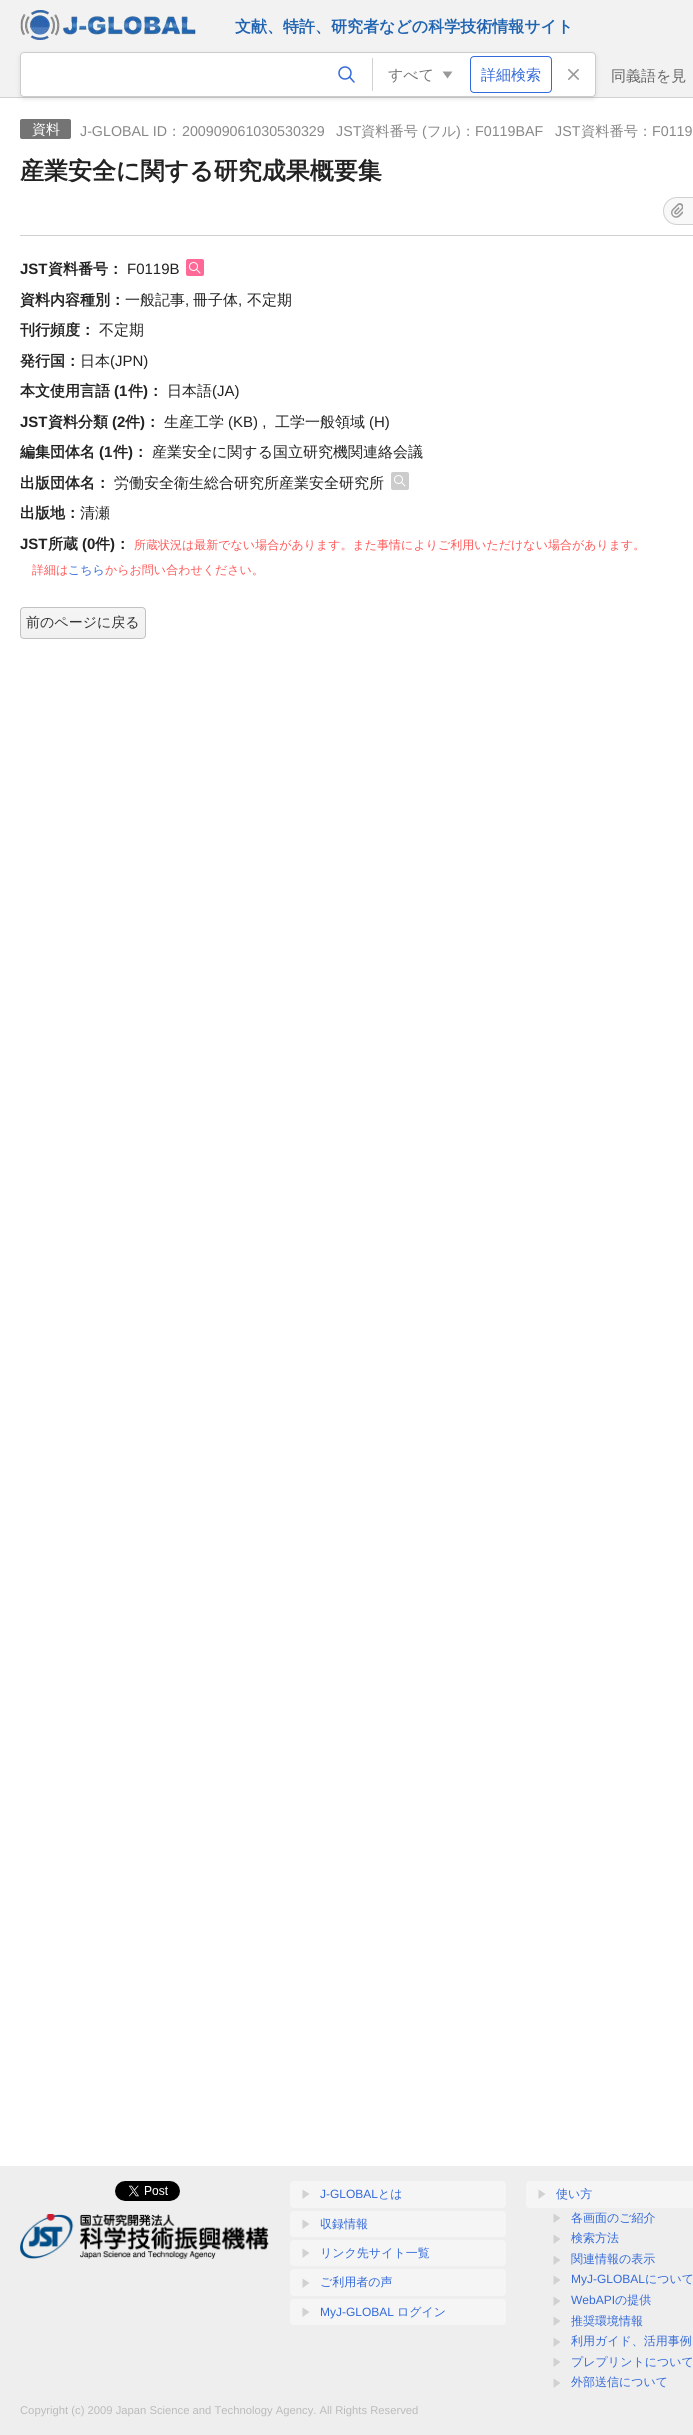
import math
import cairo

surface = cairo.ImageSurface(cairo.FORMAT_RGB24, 693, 2435)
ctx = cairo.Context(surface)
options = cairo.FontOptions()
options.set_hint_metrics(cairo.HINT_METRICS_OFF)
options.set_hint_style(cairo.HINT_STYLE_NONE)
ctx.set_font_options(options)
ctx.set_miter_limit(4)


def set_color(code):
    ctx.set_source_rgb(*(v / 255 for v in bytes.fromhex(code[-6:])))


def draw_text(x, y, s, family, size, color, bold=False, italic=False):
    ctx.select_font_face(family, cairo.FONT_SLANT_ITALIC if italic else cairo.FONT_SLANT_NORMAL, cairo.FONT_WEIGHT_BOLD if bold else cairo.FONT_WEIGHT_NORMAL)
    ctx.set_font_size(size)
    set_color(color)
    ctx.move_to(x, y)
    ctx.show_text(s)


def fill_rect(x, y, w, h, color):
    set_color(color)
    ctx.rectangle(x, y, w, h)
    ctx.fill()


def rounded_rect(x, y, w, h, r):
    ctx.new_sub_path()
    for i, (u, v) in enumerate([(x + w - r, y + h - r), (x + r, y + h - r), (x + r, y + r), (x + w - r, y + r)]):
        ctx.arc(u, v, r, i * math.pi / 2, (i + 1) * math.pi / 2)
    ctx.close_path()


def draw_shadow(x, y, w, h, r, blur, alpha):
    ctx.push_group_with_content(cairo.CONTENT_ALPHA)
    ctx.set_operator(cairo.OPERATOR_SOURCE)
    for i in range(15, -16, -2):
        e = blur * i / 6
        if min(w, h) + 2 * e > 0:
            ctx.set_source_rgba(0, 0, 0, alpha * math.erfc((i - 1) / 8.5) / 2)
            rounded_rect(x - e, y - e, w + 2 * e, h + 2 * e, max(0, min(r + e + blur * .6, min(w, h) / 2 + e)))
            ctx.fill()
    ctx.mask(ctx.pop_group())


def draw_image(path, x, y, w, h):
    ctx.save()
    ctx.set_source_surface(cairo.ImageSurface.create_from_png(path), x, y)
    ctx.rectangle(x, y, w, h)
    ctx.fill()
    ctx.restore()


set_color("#ffffff")
ctx.paint()
fill_rect(0, 0, 693, 97, "#f2f2f2")
draw_image("assets/img1.png", 20, 10, 176, 30)
draw_text(235, 32, "文献、特許、研究者などの科学技術情報サイト", "WenQuanYi Zen Hei", 16, "#2064b1", bold=True)
fill_rect(0, 97, 693, 1, "#d1d1d1")
set_color("#000000")
draw_shadow(20, 54, 576, 45, 4, 2.5, 0.1)
set_color("#ffffff")
rounded_rect(20.5, 52.5, 575, 44, 3.5)
ctx.fill_preserve()
set_color("#cccccc")
ctx.set_line_width(1)
ctx.stroke()
ctx.save()
rounded_rect(21, 53, 574, 43, 3)
ctx.clip()
set_color("#ffffff")
rounded_rect(21, 53, 301, 43, 4)
ctx.fill()
ctx.restore()
ctx.arc(345, 73, 6, 0, 2 * math.pi)
set_color("#346ad9")
ctx.set_line_width(1.5)
ctx.stroke()
ctx.new_path()
ctx.move_to(349.5, 77)
ctx.line_to(354, 82)
ctx.set_line_cap(cairo.LINE_CAP_ROUND)
ctx.set_line_join(cairo.LINE_JOIN_ROUND)
ctx.stroke()
set_color("#999999")
ctx.new_path()
ctx.move_to(452.5, 71.5)
ctx.line_to(447.5, 78.5)
ctx.line_to(442.5, 71.5)
ctx.close_path()
ctx.fill()
fill_rect(372, 58, 1, 33, "#d1d1d1")
draw_text(388, 80, "すべて", "WenQuanYi Zen Hei Medium", 15, "#777777")
rounded_rect(470.5, 56.5, 81, 36, 3.5)
set_color("#346ad9")
ctx.set_line_width(1)
ctx.set_line_cap(cairo.LINE_CAP_BUTT)
ctx.set_line_join(cairo.LINE_JOIN_MITER)
ctx.stroke()
draw_text(481, 80, "詳細検索", "WenQuanYi Zen Hei Medium", 15, "#346ad9")
draw_image("assets/img2.png", 568, 69, 11, 11)
draw_text(611, 81, "同義語を見", "WenQuanYi Zen Hei Medium", 15, "#666666")
fill_rect(20, 235, 673, 1, "#d1d1d1")
set_color("#747474")
rounded_rect(20, 119, 51, 20, 2)
ctx.fill()
draw_text(32, 134, "資料", "WenQuanYi Zen Hei Medium", 14, "#ffffff")
draw_text(80, 136, "J-GLOBAL ID", "Liberation Sans", 14.25, "#888888")
draw_text(167, 136, "：", "WenQuanYi Zen Hei Medium", 14.25, "#888888")
draw_text(182, 136, "200909061030530329", "Liberation Sans", 14.25, "#888888")
draw_text(336, 136, "JST", "Liberation Sans", 14.25, "#888888")
draw_text(361, 136, "資料番号", "WenQuanYi Zen Hei Medium", 14.25, "#888888")
draw_text(422, 136, "(", "Liberation Sans", 14.25, "#888888")
draw_text(427, 136, "フル", "WenQuanYi Zen Hei Medium", 14.25, "#888888")
draw_text(456, 136, ")", "Liberation Sans", 14.25, "#888888")
draw_text(461, 136, "：", "WenQuanYi Zen Hei Medium", 14.25, "#888888")
draw_text(475, 136, "F0119BAF", "Liberation Sans", 14.25, "#888888")
draw_text(555, 136, "JST", "Liberation Sans", 14.25, "#888888")
draw_text(581, 136, "資料番号：", "WenQuanYi Zen Hei Medium", 14.25, "#888888")
draw_text(652, 136, "F0119", "Liberation Sans", 14.25, "#888888")
draw_text(20, 179, "産業安全に関する研究成果概要集", "WenQuanYi Zen Hei", 24, "#222222", bold=True)
set_color("#f8f8f8")
rounded_rect(663, 197, 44, 28, 14)
ctx.fill()
draw_image("assets/img3.png", 671, 203, 12, 15)
rounded_rect(663.5, 197.5, 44, 27, 13.5)
set_color("#d1d1d1")
ctx.stroke()
draw_text(20, 274, "JST", "Liberation Sans", 15, "#222222", bold=True)
draw_text(48, 274, "資料番号：", "WenQuanYi Zen Hei", 15, "#222222", bold=True)
draw_text(127, 274, "F0119B", "Liberation Sans", 15, "#222222")
set_color("#ff6997")
rounded_rect(186, 259, 18, 17, 2)
ctx.fill()
ctx.arc(193.5, 266.5, 4, 0, 2 * math.pi)
set_color("#ffffff")
ctx.stroke()
ctx.new_path()
ctx.move_to(196.5, 269.5)
ctx.line_to(200, 273)
ctx.set_line_cap(cairo.LINE_CAP_ROUND)
ctx.set_line_join(cairo.LINE_JOIN_ROUND)
ctx.stroke()
draw_text(20, 305, "資料内容種別：", "WenQuanYi Zen Hei", 15, "#222222", bold=True)
draw_text(125, 305, "一般記事", "WenQuanYi Zen Hei Medium", 15, "#222222")
draw_text(185, 305, ",", "Liberation Sans", 15, "#222222")
draw_text(193, 305, "冊子体", "WenQuanYi Zen Hei Medium", 15, "#222222")
draw_text(238, 305, ",", "Liberation Sans", 15, "#222222")
draw_text(247, 305, "不定期", "WenQuanYi Zen Hei Medium", 15, "#222222")
draw_text(20, 335, "刊行頻度：", "WenQuanYi Zen Hei", 15, "#222222", bold=True)
draw_text(99, 335, "不定期", "WenQuanYi Zen Hei Medium", 15, "#222222")
draw_text(20, 366, "発行国：", "WenQuanYi Zen Hei", 15, "#222222", bold=True)
draw_text(80, 366, "日本", "WenQuanYi Zen Hei Medium", 15, "#222222")
draw_text(110, 366, "(JPN)", "Liberation Sans", 15, "#222222")
draw_text(20, 396, "本文使用言語", "WenQuanYi Zen Hei", 15, "#222222", bold=True)
draw_text(114, 396, "(1", "Liberation Sans", 15, "#222222", bold=True)
draw_text(128, 396, "件", "WenQuanYi Zen Hei", 15, "#222222", bold=True)
draw_text(143, 396, ")", "Liberation Sans", 15, "#222222", bold=True)
draw_text(148, 396, "：", "WenQuanYi Zen Hei", 15, "#222222", bold=True)
draw_text(167, 396, "日本語", "WenQuanYi Zen Hei Medium", 15, "#222222")
draw_text(212, 396, "(JA)", "Liberation Sans", 15, "#222222")
draw_text(20, 427, "JST", "Liberation Sans", 15, "#222222", bold=True)
draw_text(48, 427, "資料分類", "WenQuanYi Zen Hei", 15, "#222222", bold=True)
draw_text(112, 427, "(2", "Liberation Sans", 15, "#222222", bold=True)
draw_text(125, 427, "件", "WenQuanYi Zen Hei", 15, "#222222", bold=True)
draw_text(140, 427, ")", "Liberation Sans", 15, "#222222", bold=True)
draw_text(145, 427, "：", "WenQuanYi Zen Hei", 15, "#222222", bold=True)
draw_text(164, 427, "生産工学", "WenQuanYi Zen Hei Medium", 15, "#222222")
draw_text(228, 427, "(KB) ,", "Liberation Sans", 15, "#222222")
draw_text(275, 427, "工学一般領域", "WenQuanYi Zen Hei Medium", 15, "#222222")
draw_text(369, 427, "(H)", "Liberation Sans", 15, "#222222")
draw_text(20, 457, "編集団体名", "WenQuanYi Zen Hei", 15, "#222222", bold=True)
draw_text(99, 457, "(1", "Liberation Sans", 15, "#222222", bold=True)
draw_text(113, 457, "件", "WenQuanYi Zen Hei", 15, "#222222", bold=True)
draw_text(128, 457, ")", "Liberation Sans", 15, "#222222", bold=True)
draw_text(133, 457, "：", "WenQuanYi Zen Hei", 15, "#222222", bold=True)
draw_text(152, 457, "産業安全に関する国立研究機関連絡会議", "WenQuanYi Zen Hei Medium", 15, "#222222")
draw_text(20, 488, "出版団体名：", "WenQuanYi Zen Hei", 15, "#222222", bold=True)
draw_text(114, 488, "労働安全衛生総合研究所産業安全研究所", "WenQuanYi Zen Hei Medium", 15, "#222222")
set_color("#cccccc")
rounded_rect(391, 472, 18, 18, 2)
ctx.fill()
ctx.arc(398.5, 479.5, 4, 0, 2 * math.pi)
set_color("#ffffff")
ctx.set_line_cap(cairo.LINE_CAP_BUTT)
ctx.set_line_join(cairo.LINE_JOIN_MITER)
ctx.stroke()
ctx.new_path()
ctx.move_to(401.5, 482.5)
ctx.line_to(405, 486)
ctx.set_line_cap(cairo.LINE_CAP_ROUND)
ctx.set_line_join(cairo.LINE_JOIN_ROUND)
ctx.stroke()
draw_text(20, 518, "出版地：", "WenQuanYi Zen Hei", 15, "#222222", bold=True)
draw_text(80, 518, "清瀬", "WenQuanYi Zen Hei Medium", 15, "#222222")
draw_text(20, 549, "JST", "Liberation Sans", 15, "#222222", bold=True)
draw_text(48, 549, "所蔵", "WenQuanYi Zen Hei", 15, "#222222", bold=True)
draw_text(82, 549, "(0", "Liberation Sans", 15, "#222222", bold=True)
draw_text(95, 549, "件", "WenQuanYi Zen Hei", 15, "#222222", bold=True)
draw_text(110, 549, ")", "Liberation Sans", 15, "#222222", bold=True)
draw_text(115, 549, "：", "WenQuanYi Zen Hei", 15, "#222222", bold=True)
draw_text(134, 549, "所蔵状況は最新でない場合があります。また事情によりご利用いただけない場合があります。", "WenQuanYi Zen Hei Medium", 12, "#ff5858")
draw_text(32, 574, "詳細は", "WenQuanYi Zen Hei Medium", 12, "#ff5858")
draw_text(68, 574, "こちら", "WenQuanYi Zen Hei Medium", 12, "#346ad9")
draw_text(105, 574, "からお問い合わせください。", "WenQuanYi Zen Hei Medium", 12, "#ff5858")
ctx.save()
rounded_rect(20, 607, 126, 32, 4)
ctx.clip()
gradient = cairo.LinearGradient(83, 608, 83, 638)
gradient.add_color_stop_rgba(0, 0.961, 0.961, 0.961, 1)
gradient.add_color_stop_rgba(1, 0.945, 0.945, 0.945, 1)
ctx.set_source(gradient)
ctx.rectangle(20, 608, 126, 30)
ctx.fill()
ctx.restore()
rounded_rect(20.5, 607.5, 125, 31, 3.5)
set_color("#c2c2c2")
ctx.set_line_cap(cairo.LINE_CAP_BUTT)
ctx.set_line_join(cairo.LINE_JOIN_MITER)
ctx.stroke()
draw_text(26, 627, "前のページに戻る", "WenQuanYi Zen Hei Medium", 14, "#333333")
fill_rect(0, 2166, 693, 269, "#eeeeee")
draw_image("assets/img4.png", 115, 2181, 65, 20)
draw_image("assets/img5.png", 20, 2214, 249, 45)
set_color("#f5f5f5")
rounded_rect(290, 2181, 216, 27, 4)
ctx.fill()
set_color("#d1d1d1")
ctx.new_path()
ctx.move_to(302.5, 2189.5)
ctx.line_to(309.5, 2194)
ctx.line_to(302.5, 2199)
ctx.close_path()
ctx.fill()
draw_text(320, 2198, "J-GLOBAL", "Liberation Sans", 12, "#346ad9")
draw_text(378, 2198, "とは", "WenQuanYi Zen Hei Medium", 12, "#346ad9")
set_color("#f5f5f5")
rounded_rect(290, 2211, 216, 26, 4)
ctx.fill()
set_color("#d1d1d1")
ctx.new_path()
ctx.move_to(302.5, 2219.5)
ctx.line_to(309.5, 2224)
ctx.line_to(302.5, 2229)
ctx.close_path()
ctx.fill()
draw_text(320, 2228, "収録情報", "WenQuanYi Zen Hei Medium", 12, "#346ad9")
set_color("#f5f5f5")
rounded_rect(290, 2240, 216, 26, 4)
ctx.fill()
set_color("#d1d1d1")
ctx.new_path()
ctx.move_to(302.5, 2248.5)
ctx.line_to(309.5, 2253)
ctx.line_to(302.5, 2258)
ctx.close_path()
ctx.fill()
draw_text(320, 2257, "リンク先サイト一覧", "WenQuanYi Zen Hei Medium", 12, "#346ad9")
set_color("#f5f5f5")
rounded_rect(290, 2269, 216, 27, 4)
ctx.fill()
set_color("#d1d1d1")
ctx.new_path()
ctx.move_to(302.5, 2278.5)
ctx.line_to(309.5, 2283)
ctx.line_to(302.5, 2288)
ctx.close_path()
ctx.fill()
draw_text(320, 2286, "ご利用者の声", "WenQuanYi Zen Hei Medium", 12, "#346ad9")
set_color("#f5f5f5")
rounded_rect(290, 2299, 216, 26, 4)
ctx.fill()
set_color("#d1d1d1")
ctx.new_path()
ctx.move_to(302.5, 2307.5)
ctx.line_to(309.5, 2312)
ctx.line_to(302.5, 2317)
ctx.close_path()
ctx.fill()
draw_text(320, 2316, "MyJ-GLOBAL", "Liberation Sans", 12, "#346ad9")
draw_text(397, 2316, "ログイン", "WenQuanYi Zen Hei Medium", 12, "#346ad9")
set_color("#f5f5f5")
rounded_rect(526, 2181, 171, 27, 4)
ctx.fill()
set_color("#d1d1d1")
ctx.new_path()
ctx.move_to(538.5, 2189.5)
ctx.line_to(545.5, 2194)
ctx.line_to(538.5, 2199)
ctx.close_path()
ctx.move_to(553.5, 2213.5)
ctx.line_to(560.5, 2218)
ctx.line_to(553.5, 2223)
ctx.close_path()
ctx.move_to(553.5, 2234.5)
ctx.line_to(560.5, 2239)
ctx.line_to(553.5, 2244)
ctx.close_path()
ctx.fill()
draw_text(556, 2198, "使い方", "WenQuanYi Zen Hei Medium", 12, "#346ad9")
draw_text(571, 2222, "各画面のご紹介", "WenQuanYi Zen Hei Medium", 12, "#346ad9")
draw_text(571, 2242, "検索方法", "WenQuanYi Zen Hei Medium", 12, "#346ad9")
set_color("#d1d1d1")
ctx.new_path()
ctx.move_to(553.5, 2255.5)
ctx.line_to(560.5, 2260)
ctx.line_to(553.5, 2265)
ctx.close_path()
ctx.move_to(553.5, 2275.5)
ctx.line_to(560.5, 2280)
ctx.line_to(553.5, 2285)
ctx.close_path()
ctx.move_to(553.5, 2296.5)
ctx.line_to(560.5, 2301)
ctx.line_to(553.5, 2306)
ctx.close_path()
ctx.fill()
draw_text(571, 2263, "関連情報の表示", "WenQuanYi Zen Hei Medium", 12, "#346ad9")
draw_text(571, 2283, "MyJ-GLOBAL", "Liberation Sans", 12, "#346ad9")
draw_text(645, 2283, "について", "WenQuanYi Zen Hei Medium", 12, "#346ad9")
draw_text(571, 2304, "WebAPI", "Liberation Sans", 12, "#346ad9")
draw_text(615, 2304, "の提供", "WenQuanYi Zen Hei Medium", 12, "#346ad9")
set_color("#d1d1d1")
ctx.new_path()
ctx.move_to(553.5, 2316.5)
ctx.line_to(560.5, 2321)
ctx.line_to(553.5, 2326)
ctx.close_path()
ctx.move_to(553.5, 2337.5)
ctx.line_to(560.5, 2342)
ctx.line_to(553.5, 2347)
ctx.close_path()
ctx.move_to(553.5, 2357.5)
ctx.line_to(560.5, 2362)
ctx.line_to(553.5, 2367)
ctx.close_path()
ctx.fill()
draw_text(571, 2325, "推奨環境情報", "WenQuanYi Zen Hei Medium", 12, "#346ad9")
draw_text(571, 2345, "利用ガイド、活用事例", "WenQuanYi Zen Hei Medium", 12, "#346ad9")
draw_text(571, 2366, "プレプリントについて", "WenQuanYi Zen Hei Medium", 12, "#346ad9")
set_color("#d1d1d1")
ctx.new_path()
ctx.move_to(553.5, 2378.5)
ctx.line_to(560.5, 2383)
ctx.line_to(553.5, 2388)
ctx.close_path()
ctx.fill()
draw_text(571, 2386, "外部送信について", "WenQuanYi Zen Hei Medium", 12, "#346ad9")
draw_text(20, 2414, "Copyright (c) 2009 Japan Science and Technology Agency. All Rights Reserved", "Liberation Sans", 11.25, "#bbbbbb")
surface.write_to_png("output.png")
